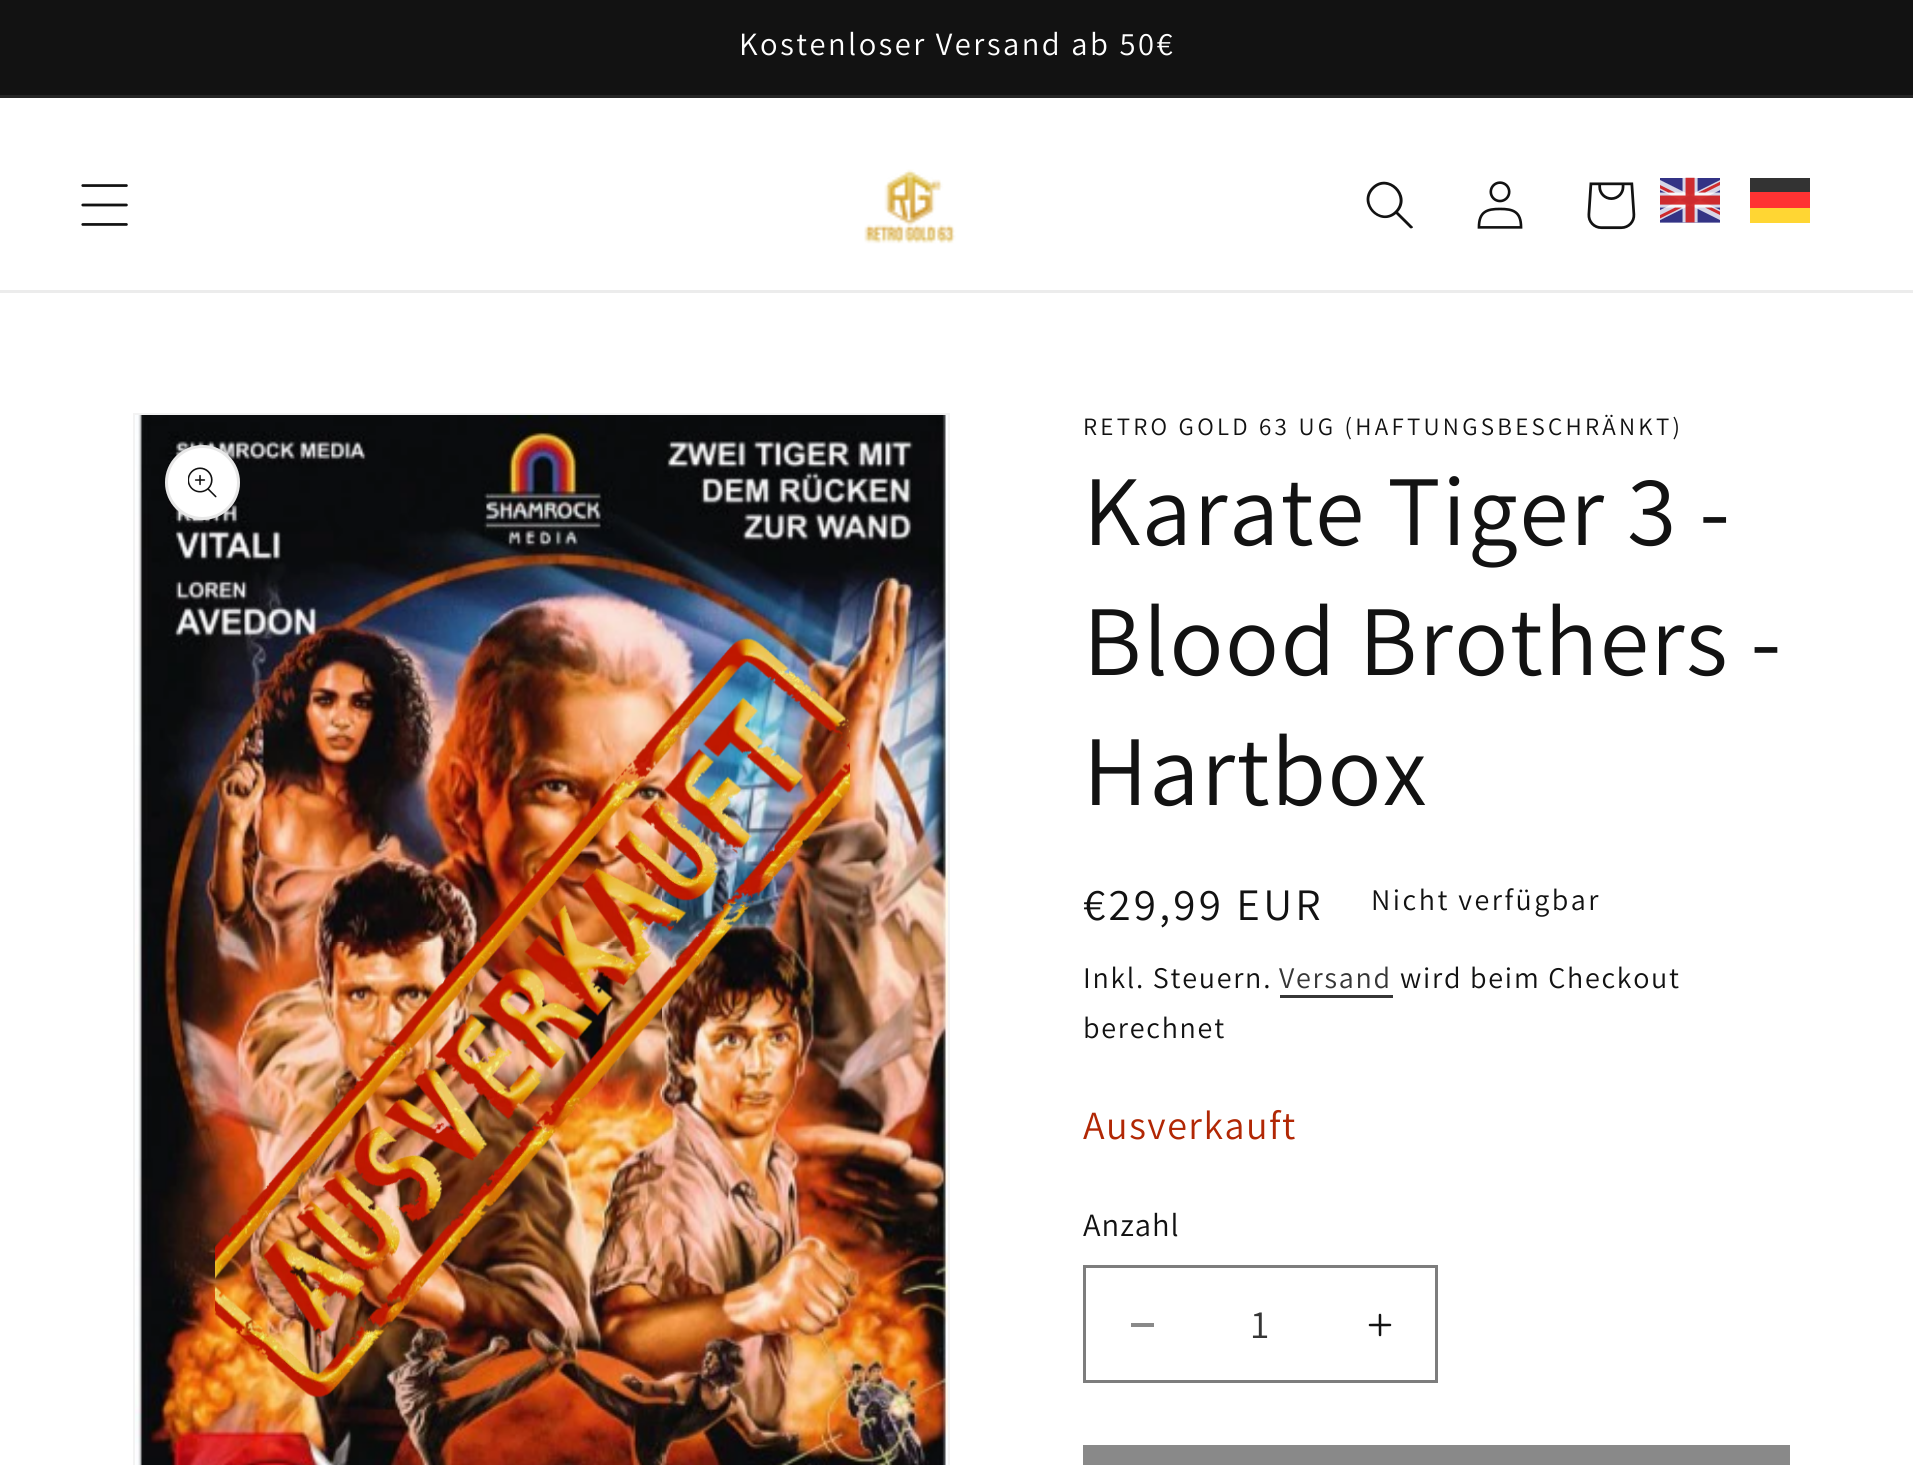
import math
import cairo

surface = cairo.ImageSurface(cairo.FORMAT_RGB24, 1913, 1465)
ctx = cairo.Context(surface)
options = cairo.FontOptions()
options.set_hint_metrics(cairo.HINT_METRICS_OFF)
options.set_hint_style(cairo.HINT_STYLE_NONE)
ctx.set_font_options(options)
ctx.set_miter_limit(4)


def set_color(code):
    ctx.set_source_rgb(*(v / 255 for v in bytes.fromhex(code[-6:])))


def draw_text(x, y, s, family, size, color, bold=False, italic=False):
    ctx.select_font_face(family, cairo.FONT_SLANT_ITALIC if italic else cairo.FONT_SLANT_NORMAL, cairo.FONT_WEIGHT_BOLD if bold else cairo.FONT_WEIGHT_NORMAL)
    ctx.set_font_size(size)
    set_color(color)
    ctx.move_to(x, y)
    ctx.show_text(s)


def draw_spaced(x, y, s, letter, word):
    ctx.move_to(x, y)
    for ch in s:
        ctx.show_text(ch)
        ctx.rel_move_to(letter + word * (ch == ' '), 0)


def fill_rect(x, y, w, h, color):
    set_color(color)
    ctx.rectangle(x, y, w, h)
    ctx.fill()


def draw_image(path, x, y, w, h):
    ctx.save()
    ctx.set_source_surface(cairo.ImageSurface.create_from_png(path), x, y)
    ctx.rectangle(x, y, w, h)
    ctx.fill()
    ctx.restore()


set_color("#ffffff")
ctx.paint()
fill_rect(0, 0, 1913, 95, "#121212")
fill_rect(0, 95, 1913, 3, "#252525")
ctx.select_font_face("Assistant")
ctx.set_font_size(32.5)
set_color("#ffffff")
draw_spaced(739, 55, "Kostenloser Versand ab 50€", 2.5, 0)
fill_rect(0, 290, 1913, 3, "#ececec")
draw_image("assets/img1.png", 81, 184, 47, 42)
draw_image("assets/img2.png", 864, 169, 92, 75)
set_color("#121212")
ctx.set_fill_rule(cairo.FILL_RULE_EVEN_ODD)
ctx.new_path()
ctx.move_to(1395, 211)
ctx.curve_to(1381, 225, 1360, 203, 1374, 189)
ctx.curve_to(1388, 175, 1409, 197, 1395, 211)
ctx.move_to(1396, 214)
ctx.curve_to(1379, 228, 1356, 203, 1372, 187)
ctx.curve_to(1388, 171, 1413, 195, 1398, 212)
ctx.line_to(1413, 227)
ctx.curve_to(1413, 228, 1411, 229, 1410, 228)
ctx.close_path()
ctx.fill()
draw_image("assets/img3.png", 1477, 181, 46, 48)
draw_image("assets/img4.png", 1587, 182, 49, 48)
draw_image("assets/img5.png", 1660, 177, 60, 46)
fill_rect(1750, 178, 60, 14, "#333333")
fill_rect(1750, 192, 60, 16, "#ff3333")
fill_rect(1750, 208, 60, 15, "#ffd633")
ctx.rectangle(134.5, 414.5, 814, 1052)
set_color("#f3f3f3")
ctx.set_line_width(3)
ctx.stroke()
draw_image("assets/img6.png", 135, 415, 813, 1050)
draw_image("assets/img7.png", 215, 638, 636, 760)
set_color("#ffffff")
ctx.arc(202.5, 482.5, 37.5, 0, 2 * math.pi)
ctx.fill()
ctx.arc(202.5, 482.5, 36, 0, 2 * math.pi)
ctx.set_source_rgba(0.071, 0.071, 0.071, 0.1)
ctx.stroke()
draw_image("assets/img8.png", 188, 467, 29, 31)
ctx.set_font_size(25)
set_color("#121212")
draw_spaced(1083, 435, "RETRO GOLD 63 UG (HAFTUNGSBESCHRÄNKT)", 3.25, 0)
ctx.set_font_size(100)
draw_spaced(1083, 545, "Karate Tiger 3 -", 1.5, 0)
draw_spaced(1083, 675, "Blood Brothers -", 1.5, 0)
draw_spaced(1083, 805, "Hartbox", 1.5, 0)
ctx.set_font_size(45)
draw_spaced(1083, 920, "€29,99 EUR", 3.25, 0)
ctx.set_font_size(30)
draw_spaced(1371, 910, "Nicht verfügbar", 2.5, 0)
draw_spaced(1083, 988, "Inkl. Steuern.", 1.75, 0)
set_color("#363636")
draw_spaced(1279, 988, "Versand", 1.75, 0)
fill_rect(1280, 995, 113, 3, "#363636")
set_color("#121212")
draw_spaced(1400, 988, "wird beim Checkout", 1.75, 0)
draw_spaced(1083, 1038, "berechnet", 1.75, 0)
ctx.set_font_size(40)
set_color("#b12704")
draw_spaced(1083, 1139, "Ausverkauft", 1.5, 0)
ctx.set_font_size(32.5)
set_color("#121212")
draw_spaced(1083, 1236, "Anzahl", 1, 0)
fill_rect(1131, 1323, 23, 4, "#898989")
draw_image("assets/img9.png", 1368, 1313, 24, 24)
ctx.rectangle(1084.5, 1266.5, 352, 115)
set_color("#7d7d7d")
ctx.stroke()
draw_text(1251, 1338, "1", "Assistant", 40, "#363636")
fill_rect(1083, 1445, 707, 20, "#898989")
surface.write_to_png("output.png")
